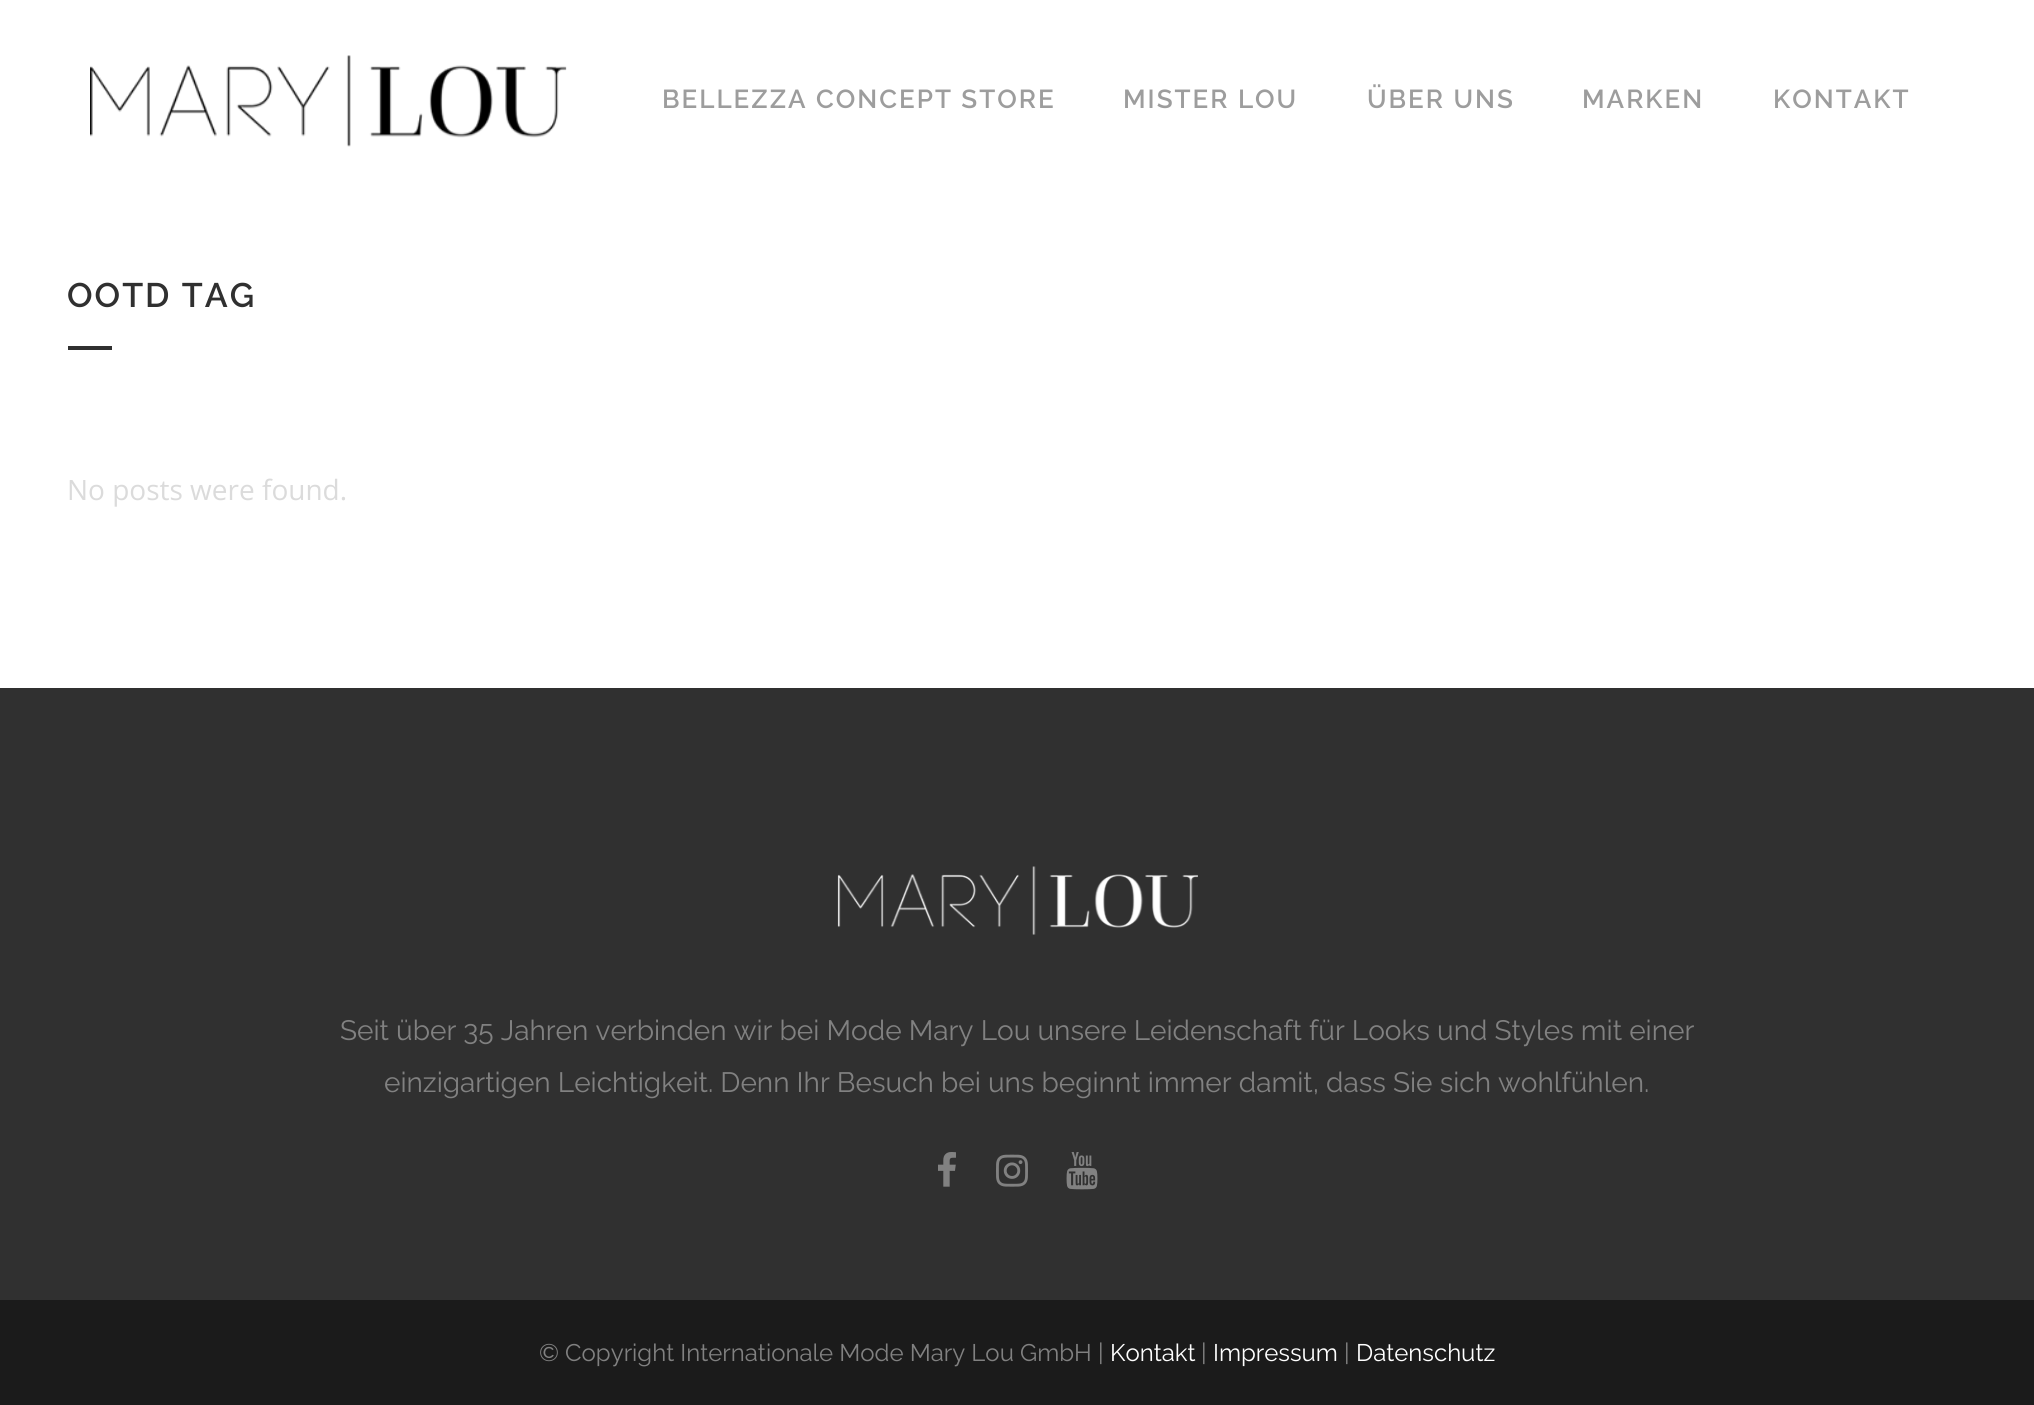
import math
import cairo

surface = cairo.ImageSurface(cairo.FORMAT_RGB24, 2034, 1405)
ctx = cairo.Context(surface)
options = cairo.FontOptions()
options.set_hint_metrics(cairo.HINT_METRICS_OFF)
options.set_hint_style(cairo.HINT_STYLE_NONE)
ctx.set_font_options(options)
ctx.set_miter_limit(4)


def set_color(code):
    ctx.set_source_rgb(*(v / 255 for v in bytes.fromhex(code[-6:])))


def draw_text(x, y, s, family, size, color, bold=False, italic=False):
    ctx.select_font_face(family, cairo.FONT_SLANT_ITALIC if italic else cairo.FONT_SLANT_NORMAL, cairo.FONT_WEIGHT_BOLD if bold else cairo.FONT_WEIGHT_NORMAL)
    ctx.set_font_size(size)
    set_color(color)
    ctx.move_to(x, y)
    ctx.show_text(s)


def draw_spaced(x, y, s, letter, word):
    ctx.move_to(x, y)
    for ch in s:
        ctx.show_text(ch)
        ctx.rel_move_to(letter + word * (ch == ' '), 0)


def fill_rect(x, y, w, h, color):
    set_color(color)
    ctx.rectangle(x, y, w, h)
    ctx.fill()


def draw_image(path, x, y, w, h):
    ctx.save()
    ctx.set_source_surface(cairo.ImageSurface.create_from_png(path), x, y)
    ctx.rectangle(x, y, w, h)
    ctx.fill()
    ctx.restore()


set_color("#ffffff")
ctx.paint()
draw_image("assets/img1.png", 90, 55, 477, 92)
ctx.select_font_face("Raleway SemiBold")
ctx.set_font_size(26)
set_color("#9d9d9d")
draw_spaced(662, 108, "BELLEZZA CONCEPT STORE", 2, 0)
draw_spaced(1123, 108, "MISTER LOU", 2, 0)
draw_spaced(1367, 108, "ÜBER UNS", 2, 0)
draw_spaced(1582, 108, "MARKEN", 2, 0)
draw_spaced(1773, 108, "KONTAKT", 2, 0)
ctx.set_font_size(34)
set_color("#303030")
draw_spaced(67, 307, "OOTD TAG", 2, 0)
fill_rect(68, 346, 44, 4, "#303030")
draw_text(67, 500, "No posts were found.", "Open Sans", 28, "#dbdbdb")
fill_rect(0, 688, 2034, 612, "#303030")
draw_image("assets/img2.png", 837, 866, 361, 69)
draw_text(340, 1040, "Seit über 35 Jahren verbinden wir bei Mode Mary Lou unsere Leidenschaft für Looks und Styles mit einer", "Raleway", 28, "#818181")
draw_text(384, 1092, "einzigartigen Leichtigkeit. Denn Ihr Besuch bei uns beginnt immer damit, dass Sie sich wohlfühlen.", "Raleway", 28, "#818181")
draw_image("assets/img3.png", 938, 1152, 18, 35)
draw_image("assets/img4.png", 996, 1154, 32, 33)
draw_image("assets/img5.png", 1066, 1152, 32, 38)
fill_rect(0, 1300, 2034, 105, "#1b1b1b")
draw_text(539, 1361, "© Copyright Internationale Mode Mary Lou GmbH |", "Raleway", 24, "#818181")
draw_text(1110, 1361, "Kontakt", "Raleway", 24, "#ffffff")
draw_text(1201, 1361, "|", "Raleway", 24, "#818181")
draw_text(1213, 1361, "Impressum", "Raleway", 24, "#ffffff")
draw_text(1344, 1361, "|", "Raleway", 24, "#818181")
draw_text(1356, 1361, "Datenschutz", "Raleway", 24, "#ffffff")
surface.write_to_png("output.png")
